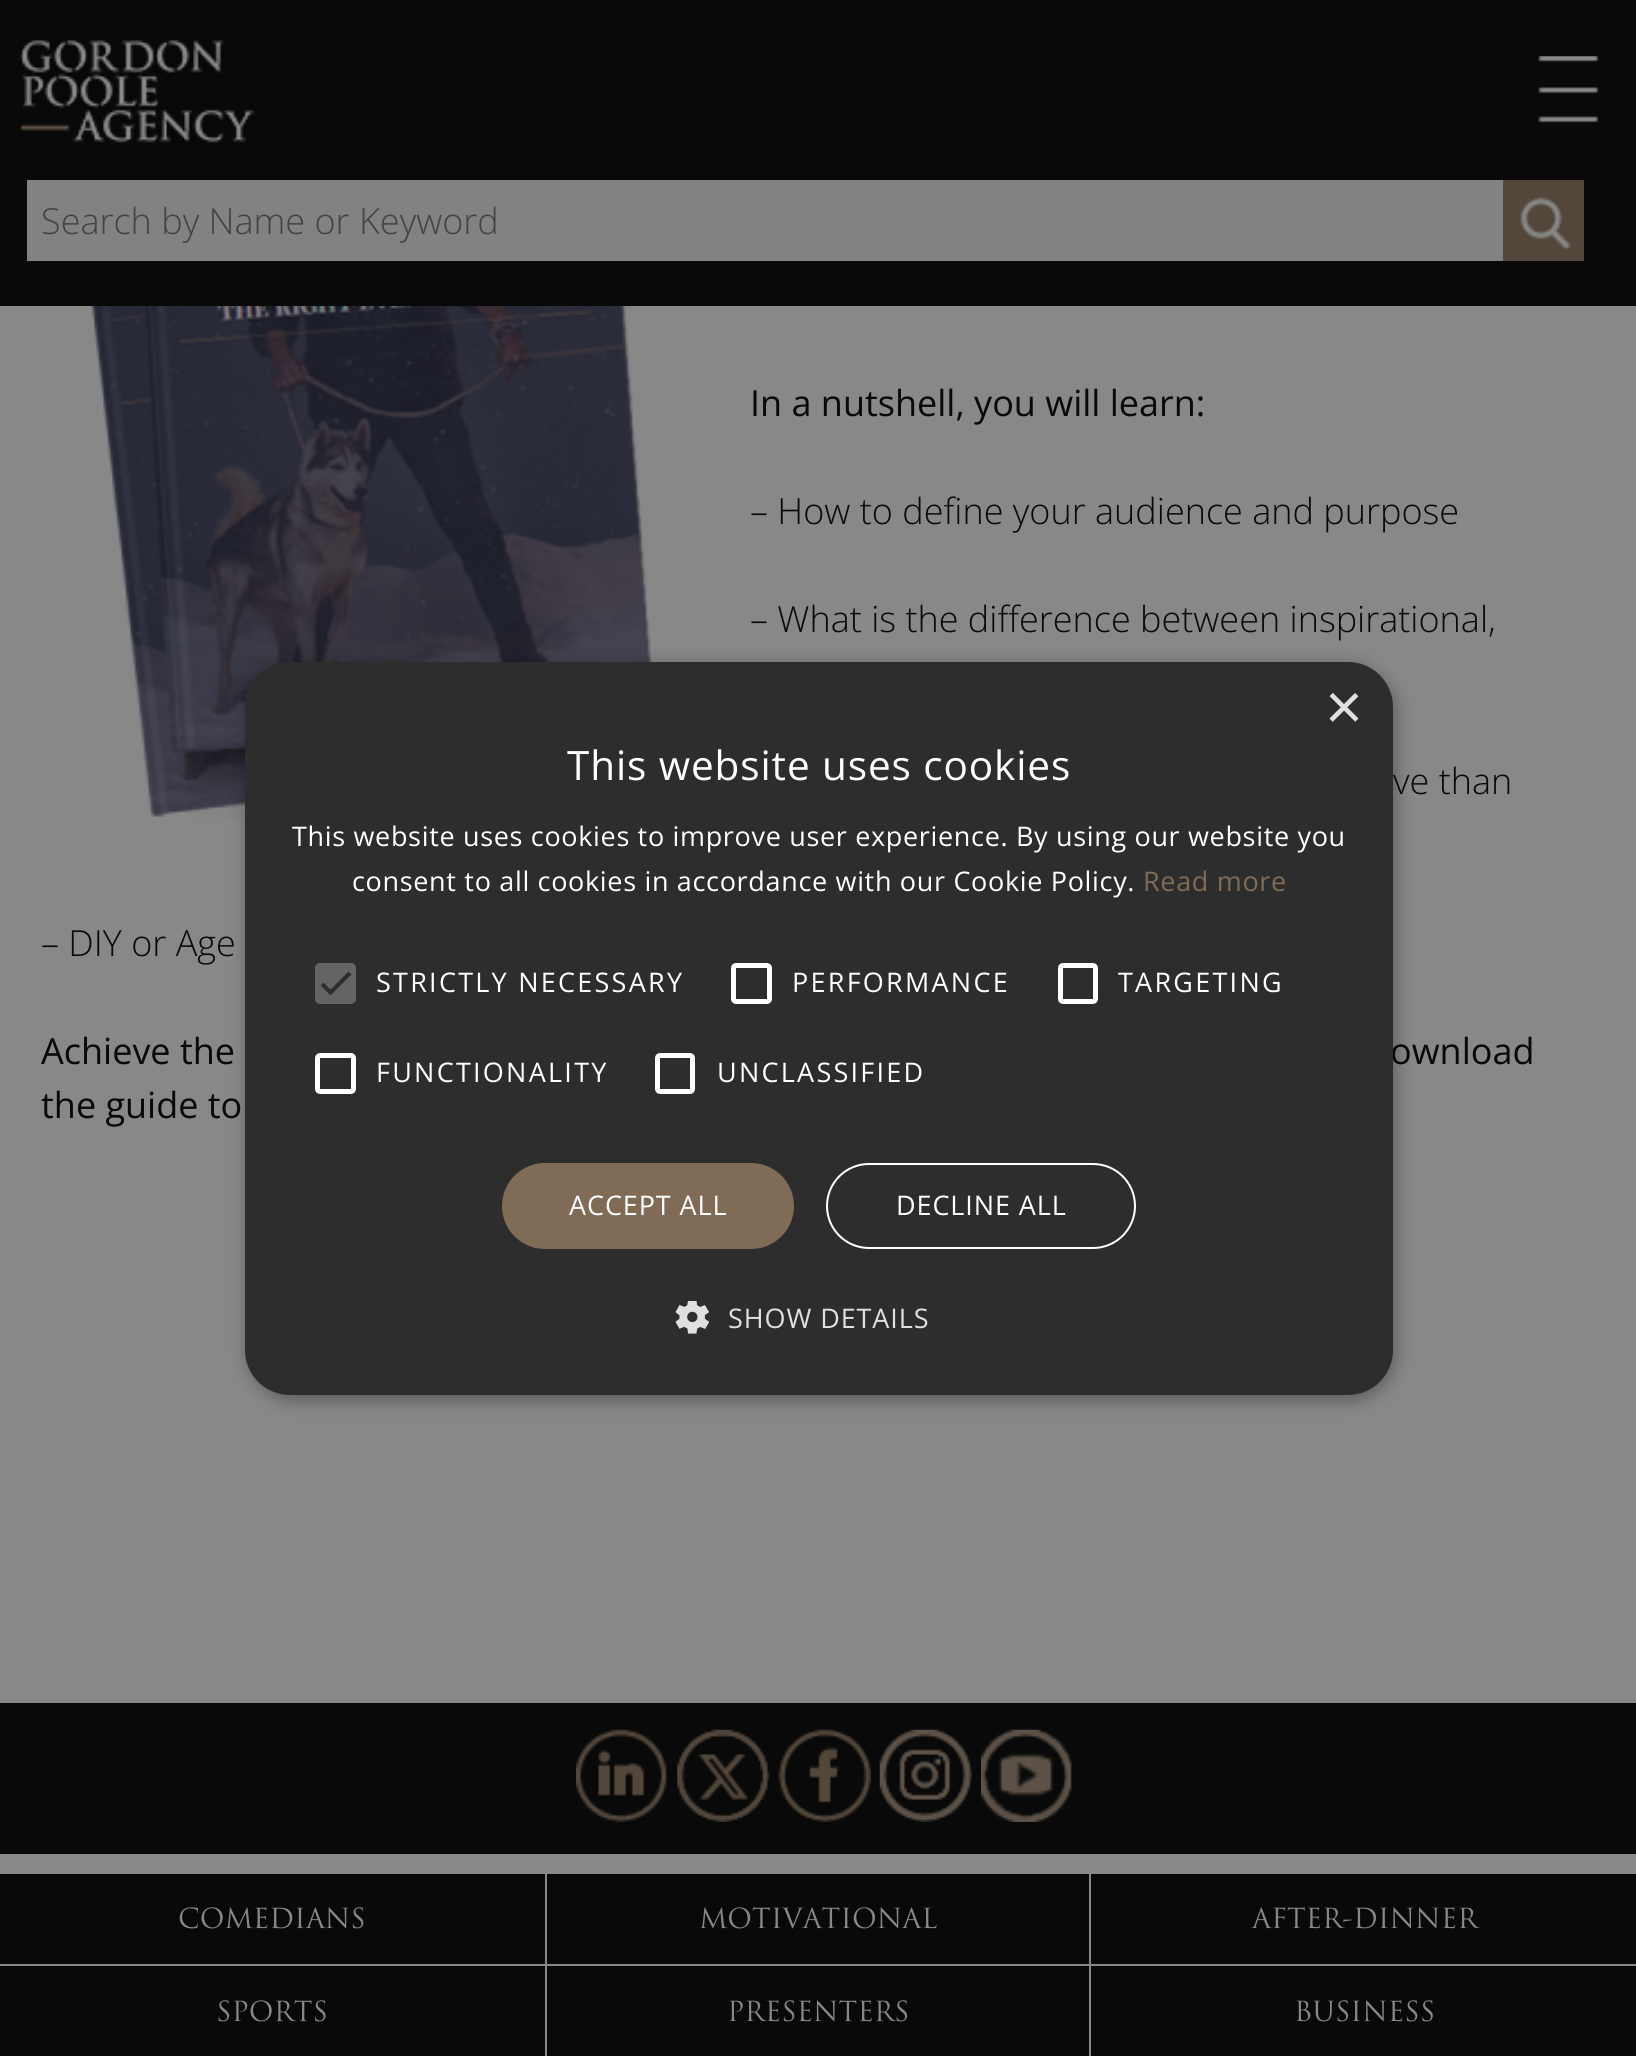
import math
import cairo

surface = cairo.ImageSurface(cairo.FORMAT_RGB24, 1636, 2056)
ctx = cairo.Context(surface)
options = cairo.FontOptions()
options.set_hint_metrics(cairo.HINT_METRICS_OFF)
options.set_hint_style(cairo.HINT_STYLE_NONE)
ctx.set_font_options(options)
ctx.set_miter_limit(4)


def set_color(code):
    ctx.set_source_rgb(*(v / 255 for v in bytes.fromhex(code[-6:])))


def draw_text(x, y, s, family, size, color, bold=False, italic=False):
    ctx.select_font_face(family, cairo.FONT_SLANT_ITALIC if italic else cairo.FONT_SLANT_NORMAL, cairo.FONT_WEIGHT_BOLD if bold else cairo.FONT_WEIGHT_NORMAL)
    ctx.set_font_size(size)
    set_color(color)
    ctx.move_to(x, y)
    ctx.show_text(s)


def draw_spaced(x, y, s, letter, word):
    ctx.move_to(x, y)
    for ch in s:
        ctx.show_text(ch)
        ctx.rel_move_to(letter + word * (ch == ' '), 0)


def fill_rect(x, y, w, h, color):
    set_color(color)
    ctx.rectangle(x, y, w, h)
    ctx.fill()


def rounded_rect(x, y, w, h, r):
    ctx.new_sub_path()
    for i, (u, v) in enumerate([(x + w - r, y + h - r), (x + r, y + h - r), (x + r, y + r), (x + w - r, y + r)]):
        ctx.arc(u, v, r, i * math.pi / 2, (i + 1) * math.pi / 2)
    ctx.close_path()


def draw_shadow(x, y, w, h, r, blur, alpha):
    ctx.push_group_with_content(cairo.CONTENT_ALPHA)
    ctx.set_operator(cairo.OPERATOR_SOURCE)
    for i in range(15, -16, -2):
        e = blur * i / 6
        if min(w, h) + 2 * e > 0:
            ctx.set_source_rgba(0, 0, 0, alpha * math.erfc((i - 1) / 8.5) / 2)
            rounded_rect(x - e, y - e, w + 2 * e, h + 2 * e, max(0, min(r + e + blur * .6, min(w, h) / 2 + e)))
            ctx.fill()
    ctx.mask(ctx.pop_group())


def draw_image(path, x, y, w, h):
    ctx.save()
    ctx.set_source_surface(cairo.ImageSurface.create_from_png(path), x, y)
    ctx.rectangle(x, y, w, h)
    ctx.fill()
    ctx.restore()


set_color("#888888")
ctx.paint()
fill_rect(0, 0, 1636, 306, "#090909")
draw_image("assets/img1.png", 19, 40, 236, 103)
draw_image("assets/img2.png", 1538, 56, 61, 67)
fill_rect(27, 180, 1476, 81, "#828282")
draw_text(41, 234, "Search by Name or Keyword", "Open Sans Light", 36, "#434343")
fill_rect(1503, 180, 81, 81, "#53473b")
draw_image("assets/img3.png", 1520, 197, 51, 54)
draw_image("assets/img4.png", 90, 306, 563, 516)
draw_text(750, 416, "In a nutshell, you will learn:", "Open Sans", 36, "#090909")
draw_text(750, 524, "– How to define your audience and purpose", "Open Sans Light", 36, "#090909")
draw_text(750, 632, "– What is the difference between inspirational,", "Open Sans Light", 36, "#090909")
draw_text(1393, 794, "ve than", "Open Sans Light", 36, "#090909")
draw_text(41, 956, "– DIY or Age", "Open Sans Light", 36, "#090909")
draw_text(41, 1064, "Achieve the", "Open Sans", 36, "#090909")
draw_text(1390, 1064, "ownload", "Open Sans", 36, "#090909")
draw_text(41, 1118, "the guide to", "Open Sans", 36, "#090909")
fill_rect(0, 1703, 1636, 151, "#090909")
draw_image("assets/img5.png", 576, 1729, 91, 93)
draw_image("assets/img6.png", 677, 1729, 93, 93)
draw_image("assets/img7.png", 778, 1729, 93, 93)
draw_image("assets/img8.png", 879, 1729, 93, 93)
draw_image("assets/img9.png", 981, 1729, 91, 93)
set_color("#000000")
draw_shadow(248, 666, 1147, 734, 45, 9, 0.35)
set_color("#2d2d2d")
rounded_rect(245, 662, 1148, 733, 45)
ctx.fill()
draw_text(1325, 729, "×", "Liberation Sans", 65, "#e0e0e0")
ctx.select_font_face("Open Sans")
ctx.set_font_size(40.5)
set_color("#ffffff")
draw_spaced(567, 780, "This website uses cookies", 0.9, 0)
ctx.set_font_size(27)
draw_spaced(292, 846, "This website uses cookies to improve user experience. By using our website you", 0.67, 0)
draw_spaced(352, 891, "consent to all cookies in accordance with our Cookie Policy.", 0.67, 0)
set_color("#7f6b56")
draw_spaced(1143, 891, "Read more", 0.67, 0)
set_color("#646464")
rounded_rect(315, 963, 41, 41, 5)
ctx.fill()
ctx.new_path()
ctx.move_to(322, 984)
ctx.line_to(330.5, 992.5)
ctx.line_to(350, 973)
set_color("#2d2d2d")
ctx.set_line_width(4.1)
ctx.stroke()
set_color("#ffffff")
draw_spaced(376, 992, "STRICTLY NECESSARY", 2.25, 0)
rounded_rect(733.5, 965.5, 36, 36, 2.5)
ctx.set_line_width(5)
ctx.stroke()
draw_spaced(792, 992, "PERFORMANCE", 2.25, 0)
rounded_rect(1060.5, 965.5, 35, 36, 2.5)
ctx.stroke()
draw_spaced(1118, 992, "TARGETING", 2.25, 0)
rounded_rect(317.5, 1055.5, 36, 36, 2.5)
ctx.stroke()
draw_spaced(376, 1082, "FUNCTIONALITY", 2.25, 0)
rounded_rect(657.5, 1055.5, 35, 36, 2.5)
ctx.stroke()
draw_spaced(717, 1082, "UNCLASSIFIED", 2.25, 0)
set_color("#7f6b56")
rounded_rect(502, 1163, 292, 86, 43)
ctx.fill()
set_color("#ffffff")
draw_spaced(569, 1215, "ACCEPT ALL", 0.9, 0)
rounded_rect(827, 1164, 308, 84, 42)
ctx.set_line_width(2)
ctx.stroke()
draw_spaced(896, 1215, "DECLINE ALL", 0.9, 0)
draw_image("assets/img10.png", 675, 1301, 34, 33)
set_color("#e0e0e0")
draw_spaced(728, 1328, "SHOW DETAILS", 0.9, 0)
fill_rect(0, 1874, 545, 182, "#090909")
fill_rect(0, 1964, 547, 2, "#888888")
draw_text(178, 1928, "COMEDIANS", "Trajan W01", 27, "#888888")
fill_rect(547, 1874, 542, 182, "#090909")
fill_rect(547, 1964, 544, 2, "#888888")
draw_text(699, 1928, "MOTIVATIONAL", "Trajan W01", 27, "#888888")
fill_rect(1091, 1874, 545, 182, "#090909")
fill_rect(1091, 1964, 545, 2, "#888888")
draw_text(1252, 1928, "AFTER-DINNER", "Trajan W01", 27, "#888888")
draw_text(216, 2021, "SPORTS", "Trajan W01", 27, "#888888")
draw_text(727, 2021, "PRESENTERS", "Trajan W01", 27, "#888888")
draw_text(1294, 2021, "BUSINESS", "Trajan W01", 27, "#888888")
surface.write_to_png("output.png")
